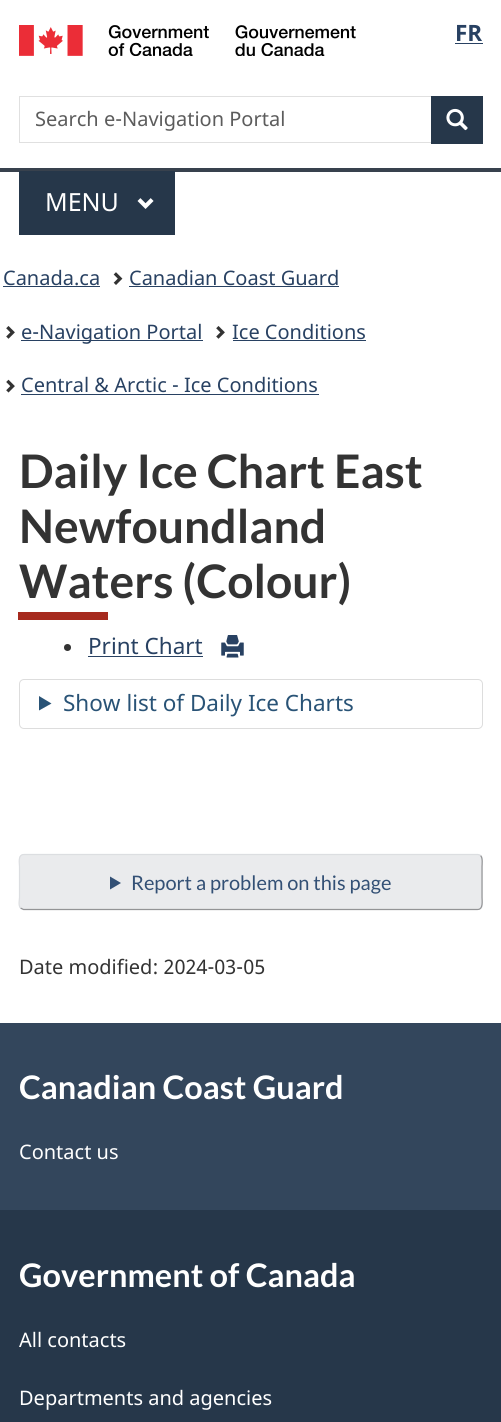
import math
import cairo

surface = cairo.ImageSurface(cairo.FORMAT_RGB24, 501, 1422)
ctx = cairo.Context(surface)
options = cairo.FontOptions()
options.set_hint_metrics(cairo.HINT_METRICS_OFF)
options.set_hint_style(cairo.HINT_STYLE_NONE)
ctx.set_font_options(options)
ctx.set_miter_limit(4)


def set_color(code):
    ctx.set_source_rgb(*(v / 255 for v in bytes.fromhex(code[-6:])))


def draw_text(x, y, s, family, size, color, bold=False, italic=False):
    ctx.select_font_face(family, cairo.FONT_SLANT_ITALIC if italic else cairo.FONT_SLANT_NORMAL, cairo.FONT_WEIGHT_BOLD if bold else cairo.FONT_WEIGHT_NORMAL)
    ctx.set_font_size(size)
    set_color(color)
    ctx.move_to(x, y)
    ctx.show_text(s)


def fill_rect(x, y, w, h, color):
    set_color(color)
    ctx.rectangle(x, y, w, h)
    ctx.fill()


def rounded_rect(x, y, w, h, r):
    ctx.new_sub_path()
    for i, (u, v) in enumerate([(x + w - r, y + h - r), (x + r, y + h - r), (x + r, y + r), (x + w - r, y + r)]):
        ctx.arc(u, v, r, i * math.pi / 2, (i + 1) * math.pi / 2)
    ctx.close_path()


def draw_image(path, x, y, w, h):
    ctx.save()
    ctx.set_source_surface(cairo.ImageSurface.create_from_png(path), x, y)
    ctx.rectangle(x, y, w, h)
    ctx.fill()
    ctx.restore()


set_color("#ffffff")
ctx.paint()
draw_image("assets/img1.png", 19, 25, 337, 31)
draw_text(455, 41, "FR", "Noto Sans", 22.5, "#284162", bold=True)
fill_rect(455, 43, 28, 1, "#284162")
ctx.rectangle(19.5, 96.5, 463, 46)
set_color("#e0e0e0")
ctx.set_line_width(1)
ctx.stroke()
draw_text(35, 126, "Search e-Navigation Portal", "Noto Sans", 20, "#5c5c5c")
fill_rect(431, 96, 52, 48, "#26374a")
draw_image("assets/img2.png", 446, 108, 22, 23)
fill_rect(0, 168, 501, 4, "#38414d")
fill_rect(19, 171, 156, 64, "#26374a")
draw_text(45, 211, "MENU", "Noto Sans", 25, "#ffffff")
draw_image("assets/img3.png", 137, 198, 17, 11)
draw_text(3, 285, "Canada.ca", "Noto Sans", 20, "#284162")
fill_rect(3, 286, 97, 1, "#284162")
draw_image("assets/img4.png", 113, 272, 10, 13)
draw_text(129, 285, "Canadian Coast Guard", "Noto Sans", 20, "#284162")
fill_rect(129, 286, 210, 1, "#284162")
draw_image("assets/img5.png", 6, 326, 9, 13)
fill_rect(21, 340, 182, 1, "#284162")
draw_text(21, 339, "e-Navigation Portal", "Noto Sans", 20, "#284162")
draw_image("assets/img5.png", 216, 326, 9, 13)
draw_text(232, 339, "Ice Conditions", "Noto Sans", 20, "#284162")
fill_rect(233, 340, 133, 1, "#284162")
draw_image("assets/img6.png", 6, 379, 9, 14)
draw_text(21, 392, "Central & Arctic - Ice Conditions", "Noto Sans", 20, "#284162")
fill_rect(21, 394, 298, 1, "#284162")
fill_rect(18, 612, 90, 8, "#a62a1e")
draw_text(19, 488, "Daily Ice Chart East", "Lato", 46.25, "#333333", bold=True)
draw_text(19, 543, "Newfoundland", "Lato", 46.25, "#333333", bold=True)
draw_text(19, 598, "Waters (Colour)", "Lato", 46.25, "#333333", bold=True)
ctx.new_path()
ctx.arc(67.5, 647.5, 3.5, 0, 2 * math.pi)
ctx.fill()
draw_text(88, 654, "Print Chart", "Noto Sans", 22.5, "#284162")
fill_rect(88, 656, 115, 1, "#284162")
draw_image("assets/img7.png", 221, 635, 23, 23)
rounded_rect(19.5, 679.5, 463, 49, 4.5)
set_color("#dddddd")
ctx.stroke()
set_color("#295376")
ctx.new_path()
ctx.move_to(39, 696)
ctx.line_to(51.5, 703.5)
ctx.line_to(39, 710.5)
ctx.close_path()
ctx.fill()
draw_text(63, 711, "Show list of Daily Ice Charts", "Noto Sans", 22.5, "#295376")
set_color("#eaebed")
rounded_rect(19, 854, 464, 56, 5)
ctx.fill()
ctx.new_path()
ctx.move_to(480.5, 855.5)
ctx.curve_to(483, 858, 482, 864.5, 482, 866.5)
ctx.line_to(482, 897.5)
ctx.curve_to(482, 900.5, 483.5, 909.5, 477.5, 909.5)
ctx.line_to(23.5, 909.5)
ctx.line_to(20.5, 908)
set_color("#939496")
ctx.set_line_width(1.2)
ctx.stroke()
ctx.new_path()
ctx.move_to(20.5, 908)
ctx.curve_to(18, 905.5, 19.5, 899.5, 19.5, 897.5)
ctx.line_to(19.5, 866.5)
ctx.curve_to(19.5, 863.5, 17.5, 854.5, 24, 854.5)
ctx.line_to(478, 854.5)
ctx.line_to(480.5, 855.5)
set_color("#dcdee1")
ctx.stroke()
set_color("#335075")
ctx.new_path()
ctx.move_to(110, 876.5)
ctx.line_to(121, 883)
ctx.line_to(110, 889.5)
ctx.close_path()
ctx.fill()
draw_text(131, 890, "Report a problem on this page", "Lato", 20, "#335075")
draw_text(19, 974, "Date modified: 2024-03-05", "Noto Sans", 20, "#333333")
fill_rect(0, 1023, 501, 187, "#33465c")
draw_text(19, 1099, "Canadian Coast Guard", "Lato", 32.5, "#ffffff", bold=True)
draw_text(19, 1159, "Contact us", "Noto Sans", 20, "#ffffff")
fill_rect(0, 1210, 501, 212, "#26374a")
draw_text(19, 1287, "Government of Canada", "Lato", 32.5, "#ffffff", bold=True)
draw_text(19, 1347, "All contacts", "Noto Sans", 20, "#ffffff")
draw_text(19, 1405, "Departments and agencies", "Noto Sans", 20, "#ffffff")
surface.write_to_png("output.png")
